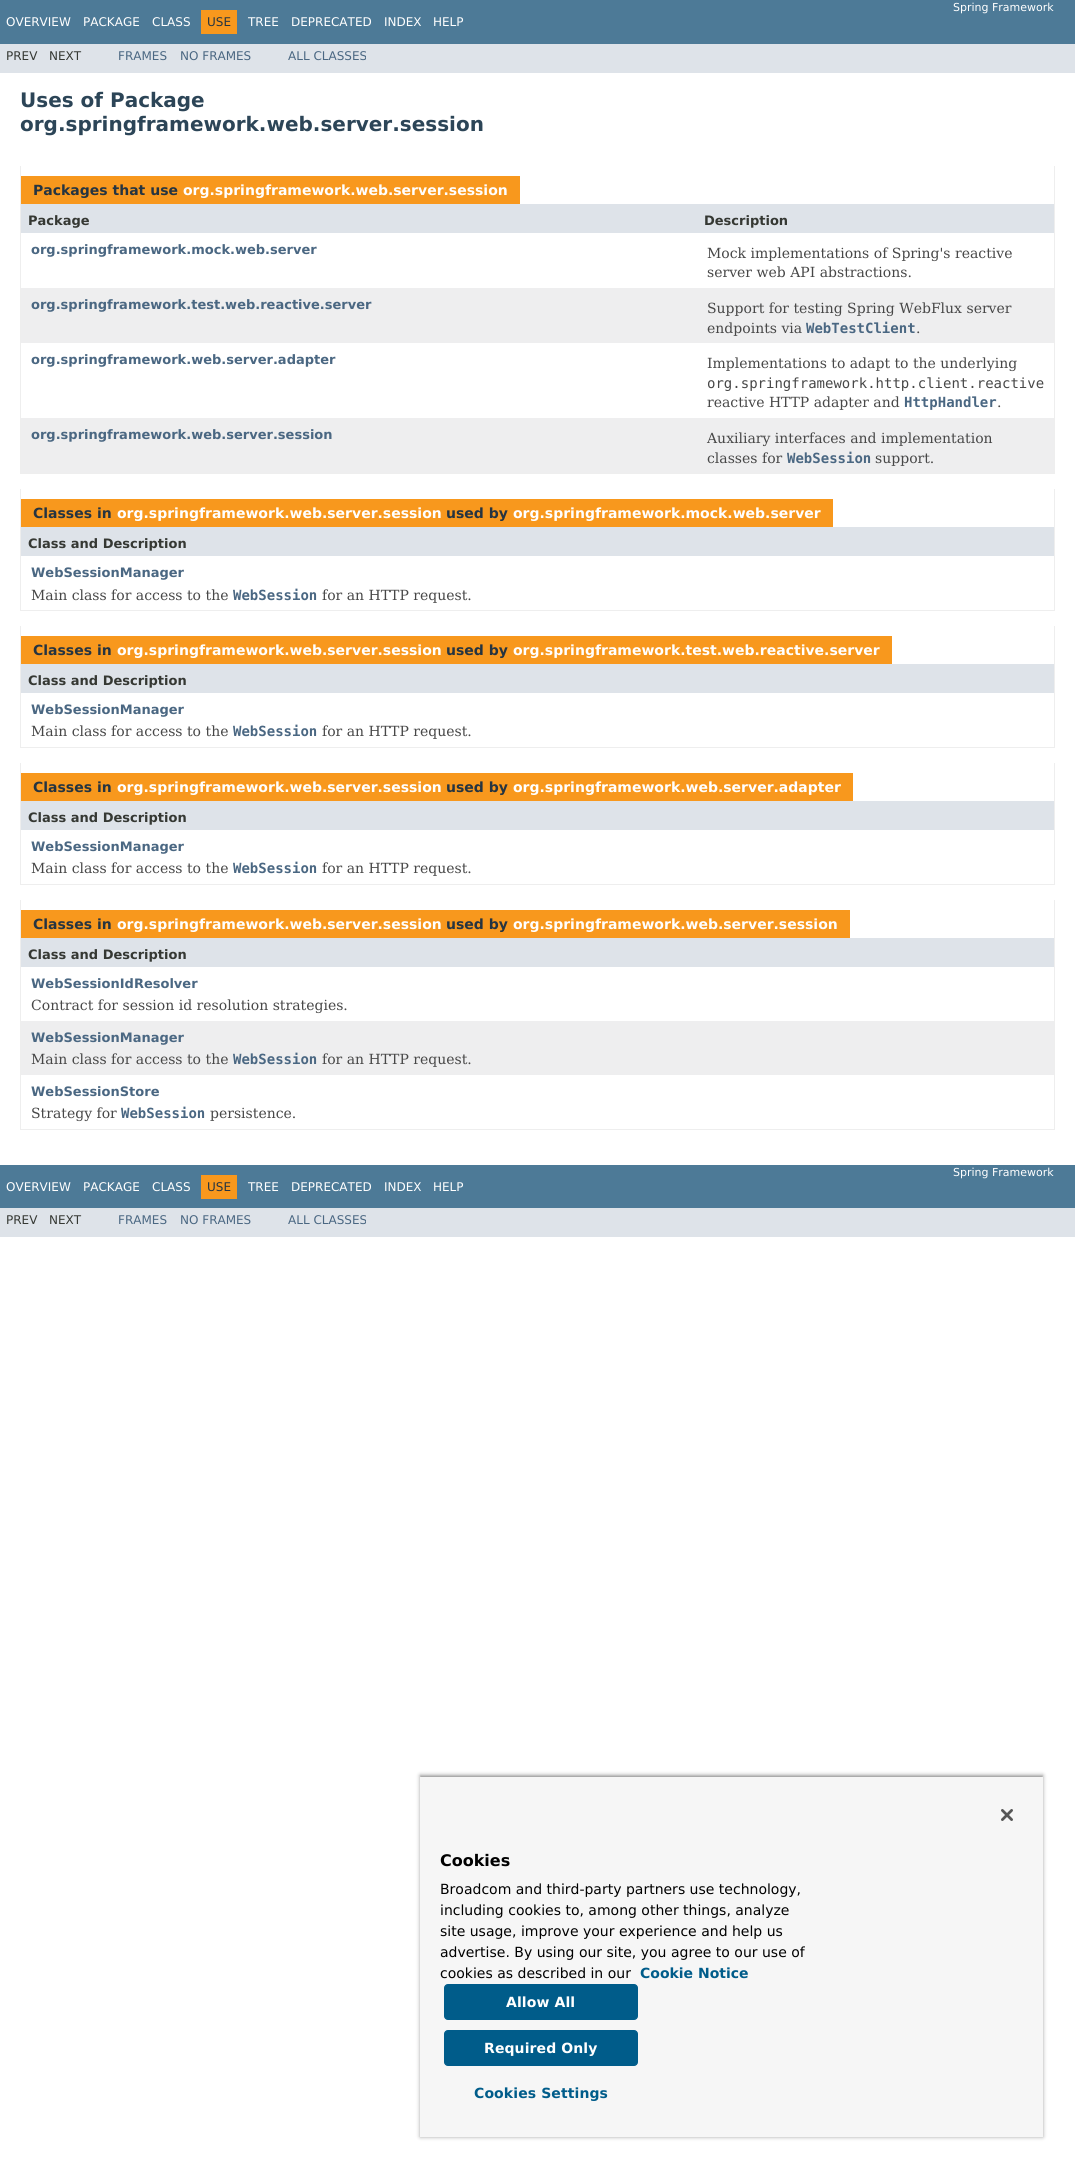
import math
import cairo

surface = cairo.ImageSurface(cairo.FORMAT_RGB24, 1075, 2169)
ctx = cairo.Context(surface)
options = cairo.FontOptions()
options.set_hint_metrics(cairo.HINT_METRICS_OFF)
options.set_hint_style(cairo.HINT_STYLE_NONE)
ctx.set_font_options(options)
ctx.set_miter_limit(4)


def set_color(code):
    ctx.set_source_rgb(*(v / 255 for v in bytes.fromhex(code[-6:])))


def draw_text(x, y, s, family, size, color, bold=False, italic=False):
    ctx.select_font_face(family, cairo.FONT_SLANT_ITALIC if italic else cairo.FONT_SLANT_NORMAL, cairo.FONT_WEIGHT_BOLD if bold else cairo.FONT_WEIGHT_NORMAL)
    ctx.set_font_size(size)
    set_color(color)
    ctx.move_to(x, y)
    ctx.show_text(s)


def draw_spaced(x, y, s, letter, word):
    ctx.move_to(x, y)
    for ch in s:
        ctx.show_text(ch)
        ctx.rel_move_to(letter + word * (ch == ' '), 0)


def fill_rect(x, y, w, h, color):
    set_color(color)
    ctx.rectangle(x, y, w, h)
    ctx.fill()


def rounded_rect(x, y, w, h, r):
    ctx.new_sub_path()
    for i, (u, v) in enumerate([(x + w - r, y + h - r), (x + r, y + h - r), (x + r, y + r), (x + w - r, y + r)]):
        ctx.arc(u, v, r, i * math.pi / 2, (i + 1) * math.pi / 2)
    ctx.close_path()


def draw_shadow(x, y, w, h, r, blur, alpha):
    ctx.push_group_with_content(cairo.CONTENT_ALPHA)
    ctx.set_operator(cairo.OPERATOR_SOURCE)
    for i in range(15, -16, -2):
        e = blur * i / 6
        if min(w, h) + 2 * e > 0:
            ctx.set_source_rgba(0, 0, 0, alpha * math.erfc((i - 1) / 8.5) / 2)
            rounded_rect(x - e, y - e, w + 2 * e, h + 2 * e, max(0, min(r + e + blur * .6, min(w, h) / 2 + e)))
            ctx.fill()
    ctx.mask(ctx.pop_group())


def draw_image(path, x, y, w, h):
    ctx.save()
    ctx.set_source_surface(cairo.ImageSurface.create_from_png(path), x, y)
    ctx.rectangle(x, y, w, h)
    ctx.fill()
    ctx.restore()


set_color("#ffffff")
ctx.paint()
fill_rect(0, 0, 1075, 44, "#4d7a97")
draw_text(953, 11, "Spring Framework", "DejaVu Sans", 11, "#ffffff")
draw_text(6, 26, "OVERVIEW", "DejaVu Sans", 12, "#ffffff")
draw_text(83, 26, "PACKAGE", "DejaVu Sans", 12, "#ffffff")
draw_text(152, 26, "CLASS", "DejaVu Sans", 12, "#ffffff")
fill_rect(201, 10, 36, 24, "#f8981d")
draw_text(207, 26, "USE", "DejaVu Sans", 12, "#253441")
draw_text(248, 26, "TREE", "DejaVu Sans", 12, "#ffffff")
draw_text(291, 26, "DEPRECATED", "DejaVu Sans", 12, "#ffffff")
draw_text(384, 26, "INDEX", "DejaVu Sans", 12, "#ffffff")
draw_text(433, 26, "HELP", "DejaVu Sans", 12, "#ffffff")
fill_rect(0, 44, 1075, 29, "#dee3e9")
draw_text(6, 60, "PREV", "DejaVu Sans", 12, "#353833")
draw_text(49, 60, "NEXT", "DejaVu Sans", 12, "#353833")
draw_text(118, 60, "FRAMES", "DejaVu Sans", 12, "#4a6782")
draw_text(180, 60, "NO FRAMES", "DejaVu Sans", 12, "#4a6782")
draw_text(288, 60, "ALL CLASSES", "DejaVu Sans", 12, "#4a6782")
draw_text(20, 107, "Uses of Package", "DejaVu Sans", 20, "#2c4557", bold=True)
draw_text(20, 131, "org.springframework.web.server.session", "DejaVu Sans", 20, "#2c4557", bold=True)
fill_rect(1054, 166, 1, 308, "#eeeeee")
fill_rect(20, 473, 1035, 1, "#eeeeee")
fill_rect(20, 166, 1, 308, "#eeeeee")
fill_rect(21, 176, 499, 28, "#f8981d")
draw_text(33, 195, "Packages that use", "DejaVu Sans", 14, "#253441", bold=True)
draw_text(183, 195, "org.springframework.web.server.session", "DejaVu Sans", 14, "#ffffff", bold=True)
fill_rect(21, 204, 1033, 29, "#dee3e9")
draw_text(28, 225, "Package", "DejaVu Sans", 13, "#353833", bold=True)
draw_text(704, 225, "Description", "DejaVu Sans", 13, "#353833", bold=True)
draw_text(31, 254, "org.springframework.mock.web.server", "DejaVu Sans", 13, "#4a6782", bold=True)
draw_text(707, 258, "Mock implementations of Spring's reactive", "DejaVu Serif", 14, "#474747")
draw_text(707, 277, "server web API abstractions.", "DejaVu Serif", 14, "#474747")
fill_rect(21, 288, 1033, 55, "#eeeeef")
draw_text(31, 309, "org.springframework.test.web.reactive.server", "DejaVu Sans", 13, "#4a6782", bold=True)
draw_text(707, 313, "Support for testing Spring WebFlux server", "DejaVu Serif", 14, "#474747")
draw_text(707, 333, "endpoints via", "DejaVu Serif", 14, "#474747")
draw_text(806, 333, "WebTestClient", "DejaVu Sans Mono", 14, "#4a6782", bold=True)
draw_text(916, 333, ".", "DejaVu Serif", 14, "#474747")
draw_text(31, 364, "org.springframework.web.server.adapter", "DejaVu Sans", 13, "#4a6782", bold=True)
draw_text(707, 368, "Implementations to adapt to the underlying", "DejaVu Serif", 14, "#474747")
draw_text(707, 388, "org.springframework.http.client.reactive", "DejaVu Sans Mono", 14, "#474747")
draw_text(707, 407, "reactive HTTP adapter and", "DejaVu Serif", 14, "#474747")
draw_text(904, 407, "HttpHandler", "DejaVu Sans Mono", 14, "#4a6782", bold=True)
draw_text(997, 407, ".", "DejaVu Serif", 14, "#474747")
fill_rect(21, 418, 1033, 55, "#eeeeef")
draw_text(31, 439, "org.springframework.web.server.session", "DejaVu Sans", 13, "#4a6782", bold=True)
draw_text(707, 443, "Auxiliary interfaces and implementation", "DejaVu Serif", 14, "#474747")
draw_text(707, 463, "classes for", "DejaVu Serif", 14, "#474747")
draw_text(787, 463, "WebSession", "DejaVu Sans Mono", 14, "#4a6782", bold=True)
draw_text(875, 463, "support.", "DejaVu Serif", 14, "#474747")
fill_rect(1054, 489, 1, 122, "#eeeeee")
fill_rect(20, 610, 1035, 1, "#eeeeee")
fill_rect(20, 489, 1, 122, "#eeeeee")
fill_rect(21, 499, 812, 28, "#f8981d")
draw_text(33, 518, "Classes in", "DejaVu Sans", 14, "#253441", bold=True)
draw_text(117, 518, "org.springframework.web.server.session", "DejaVu Sans", 14, "#ffffff", bold=True)
draw_text(446, 518, "used by", "DejaVu Sans", 14, "#253441", bold=True)
draw_text(513, 518, "org.springframework.mock.web.server", "DejaVu Sans", 14, "#ffffff", bold=True)
fill_rect(21, 527, 1033, 29, "#dee3e9")
draw_text(28, 548, "Class and Description", "DejaVu Sans", 13, "#353833", bold=True)
draw_text(31, 577, "WebSessionManager", "DejaVu Sans", 13, "#4a6782", bold=True)
draw_text(31, 600, "Main class for access to the", "DejaVu Serif", 14, "#474747")
draw_text(233, 600, "WebSession", "DejaVu Sans Mono", 14, "#4a6782", bold=True)
draw_text(322, 600, "for an HTTP request.", "DejaVu Serif", 14, "#474747")
fill_rect(1054, 626, 1, 122, "#eeeeee")
fill_rect(20, 747, 1035, 1, "#eeeeee")
fill_rect(20, 626, 1, 122, "#eeeeee")
fill_rect(21, 636, 871, 28, "#f8981d")
draw_text(33, 655, "Classes in", "DejaVu Sans", 14, "#253441", bold=True)
draw_text(117, 655, "org.springframework.web.server.session", "DejaVu Sans", 14, "#ffffff", bold=True)
draw_text(446, 655, "used by", "DejaVu Sans", 14, "#253441", bold=True)
draw_text(513, 655, "org.springframework.test.web.reactive.server", "DejaVu Sans", 14, "#ffffff", bold=True)
fill_rect(21, 664, 1033, 29, "#dee3e9")
draw_text(28, 685, "Class and Description", "DejaVu Sans", 13, "#353833", bold=True)
draw_text(31, 714, "WebSessionManager", "DejaVu Sans", 13, "#4a6782", bold=True)
draw_text(31, 736, "Main class for access to the", "DejaVu Serif", 14, "#474747")
draw_text(233, 736, "WebSession", "DejaVu Sans Mono", 14, "#4a6782", bold=True)
draw_text(322, 736, "for an HTTP request.", "DejaVu Serif", 14, "#474747")
fill_rect(1054, 763, 1, 122, "#eeeeee")
fill_rect(20, 884, 1035, 1, "#eeeeee")
fill_rect(20, 763, 1, 122, "#eeeeee")
fill_rect(21, 773, 832, 28, "#f8981d")
draw_text(33, 792, "Classes in", "DejaVu Sans", 14, "#253441", bold=True)
draw_text(117, 792, "org.springframework.web.server.session", "DejaVu Sans", 14, "#ffffff", bold=True)
draw_text(446, 792, "used by", "DejaVu Sans", 14, "#253441", bold=True)
draw_text(513, 792, "org.springframework.web.server.adapter", "DejaVu Sans", 14, "#ffffff", bold=True)
fill_rect(21, 801, 1033, 29, "#dee3e9")
draw_text(28, 822, "Class and Description", "DejaVu Sans", 13, "#353833", bold=True)
draw_text(31, 851, "WebSessionManager", "DejaVu Sans", 13, "#4a6782", bold=True)
draw_text(31, 873, "Main class for access to the", "DejaVu Serif", 14, "#474747")
draw_text(233, 873, "WebSession", "DejaVu Sans Mono", 14, "#4a6782", bold=True)
draw_text(322, 873, "for an HTTP request.", "DejaVu Serif", 14, "#474747")
fill_rect(1054, 900, 1, 230, "#eeeeee")
fill_rect(20, 1129, 1035, 1, "#eeeeee")
fill_rect(20, 900, 1, 230, "#eeeeee")
fill_rect(21, 910, 829, 28, "#f8981d")
draw_text(33, 929, "Classes in", "DejaVu Sans", 14, "#253441", bold=True)
draw_text(117, 929, "org.springframework.web.server.session", "DejaVu Sans", 14, "#ffffff", bold=True)
draw_text(446, 929, "used by", "DejaVu Sans", 14, "#253441", bold=True)
draw_text(513, 929, "org.springframework.web.server.session", "DejaVu Sans", 14, "#ffffff", bold=True)
fill_rect(21, 938, 1033, 29, "#dee3e9")
draw_text(28, 959, "Class and Description", "DejaVu Sans", 13, "#353833", bold=True)
draw_text(31, 988, "WebSessionIdResolver", "DejaVu Sans", 13, "#4a6782", bold=True)
draw_text(31, 1010, "Contract for session id resolution strategies.", "DejaVu Serif", 14, "#474747")
fill_rect(21, 1021, 1033, 54, "#eeeeef")
draw_text(31, 1042, "WebSessionManager", "DejaVu Sans", 13, "#4a6782", bold=True)
draw_text(31, 1064, "Main class for access to the", "DejaVu Serif", 14, "#474747")
draw_text(233, 1064, "WebSession", "DejaVu Sans Mono", 14, "#4a6782", bold=True)
draw_text(322, 1064, "for an HTTP request.", "DejaVu Serif", 14, "#474747")
draw_text(31, 1096, "WebSessionStore", "DejaVu Sans", 13, "#4a6782", bold=True)
draw_text(31, 1118, "Strategy for", "DejaVu Serif", 14, "#474747")
draw_text(121, 1118, "WebSession", "DejaVu Sans Mono", 14, "#4a6782", bold=True)
draw_text(210, 1118, "persistence.", "DejaVu Serif", 14, "#474747")
fill_rect(0, 1165, 1075, 43, "#4d7a97")
draw_text(953, 1176, "Spring Framework", "DejaVu Sans", 11, "#ffffff")
draw_text(6, 1191, "OVERVIEW", "DejaVu Sans", 12, "#ffffff")
draw_text(83, 1191, "PACKAGE", "DejaVu Sans", 12, "#ffffff")
draw_text(152, 1191, "CLASS", "DejaVu Sans", 12, "#ffffff")
fill_rect(201, 1175, 36, 24, "#f8981d")
draw_text(207, 1191, "USE", "DejaVu Sans", 12, "#253441")
draw_text(248, 1191, "TREE", "DejaVu Sans", 12, "#ffffff")
draw_text(291, 1191, "DEPRECATED", "DejaVu Sans", 12, "#ffffff")
draw_text(384, 1191, "INDEX", "DejaVu Sans", 12, "#ffffff")
draw_text(433, 1191, "HELP", "DejaVu Sans", 12, "#ffffff")
fill_rect(0, 1208, 1075, 29, "#dee3e9")
draw_text(6, 1224, "PREV", "DejaVu Sans", 12, "#353833")
draw_text(49, 1224, "NEXT", "DejaVu Sans", 12, "#353833")
draw_text(118, 1224, "FRAMES", "DejaVu Sans", 12, "#4a6782")
draw_text(180, 1224, "NO FRAMES", "DejaVu Sans", 12, "#4a6782")
draw_text(288, 1224, "ALL CLASSES", "DejaVu Sans", 12, "#4a6782")
set_color("#000000")
draw_shadow(420, 1775, 623, 362, 0, 2, 0.35)
ctx.save()
ctx.rectangle(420, 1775, 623, 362)
ctx.clip()
draw_shadow(420, 1777, 623, 360, 0, 2, 0.2)
ctx.restore()
fill_rect(420, 1777, 623, 360, "#f6f6f6")
draw_image("assets/img1.png", 1001, 1809, 12, 12)
draw_text(440, 1866, "Cookies", "DejaVu Sans", 16, "#000000", bold=True)
draw_text(440, 1894, "Broadcom and third-party partners use technology,", "DejaVu Sans", 14, "#000000")
draw_text(440, 1915, "including cookies to, among other things, analyze", "DejaVu Sans", 14, "#000000")
draw_text(440, 1936, "site usage, improve your experience and help us", "DejaVu Sans", 14, "#000000")
draw_text(440, 1957, "advertise. By using our site, you agree to our use of", "DejaVu Sans", 14, "#000000")
draw_text(440, 1978, "cookies as described in our", "DejaVu Sans", 14, "#000000")
draw_text(640, 1978, "Cookie Notice", "DejaVu Sans", 14, "#005c8a", bold=True)
rounded_rect(444.5, 1984.5, 193, 35, 3.5)
ctx.fill_preserve()
ctx.set_line_width(1)
ctx.stroke()
set_color("#ffffff")
draw_spaced(506, 2007, "Allow All", 0.1, 0)
set_color("#005c8a")
rounded_rect(444.5, 2030.5, 193, 35, 3.5)
ctx.fill_preserve()
ctx.stroke()
set_color("#ffffff")
draw_spaced(484, 2053, "Required Only", 0.1, 0)
set_color("#005c8a")
draw_spaced(474, 2098, "Cookies Settings", 0.1, 0)
surface.write_to_png("output.png")
